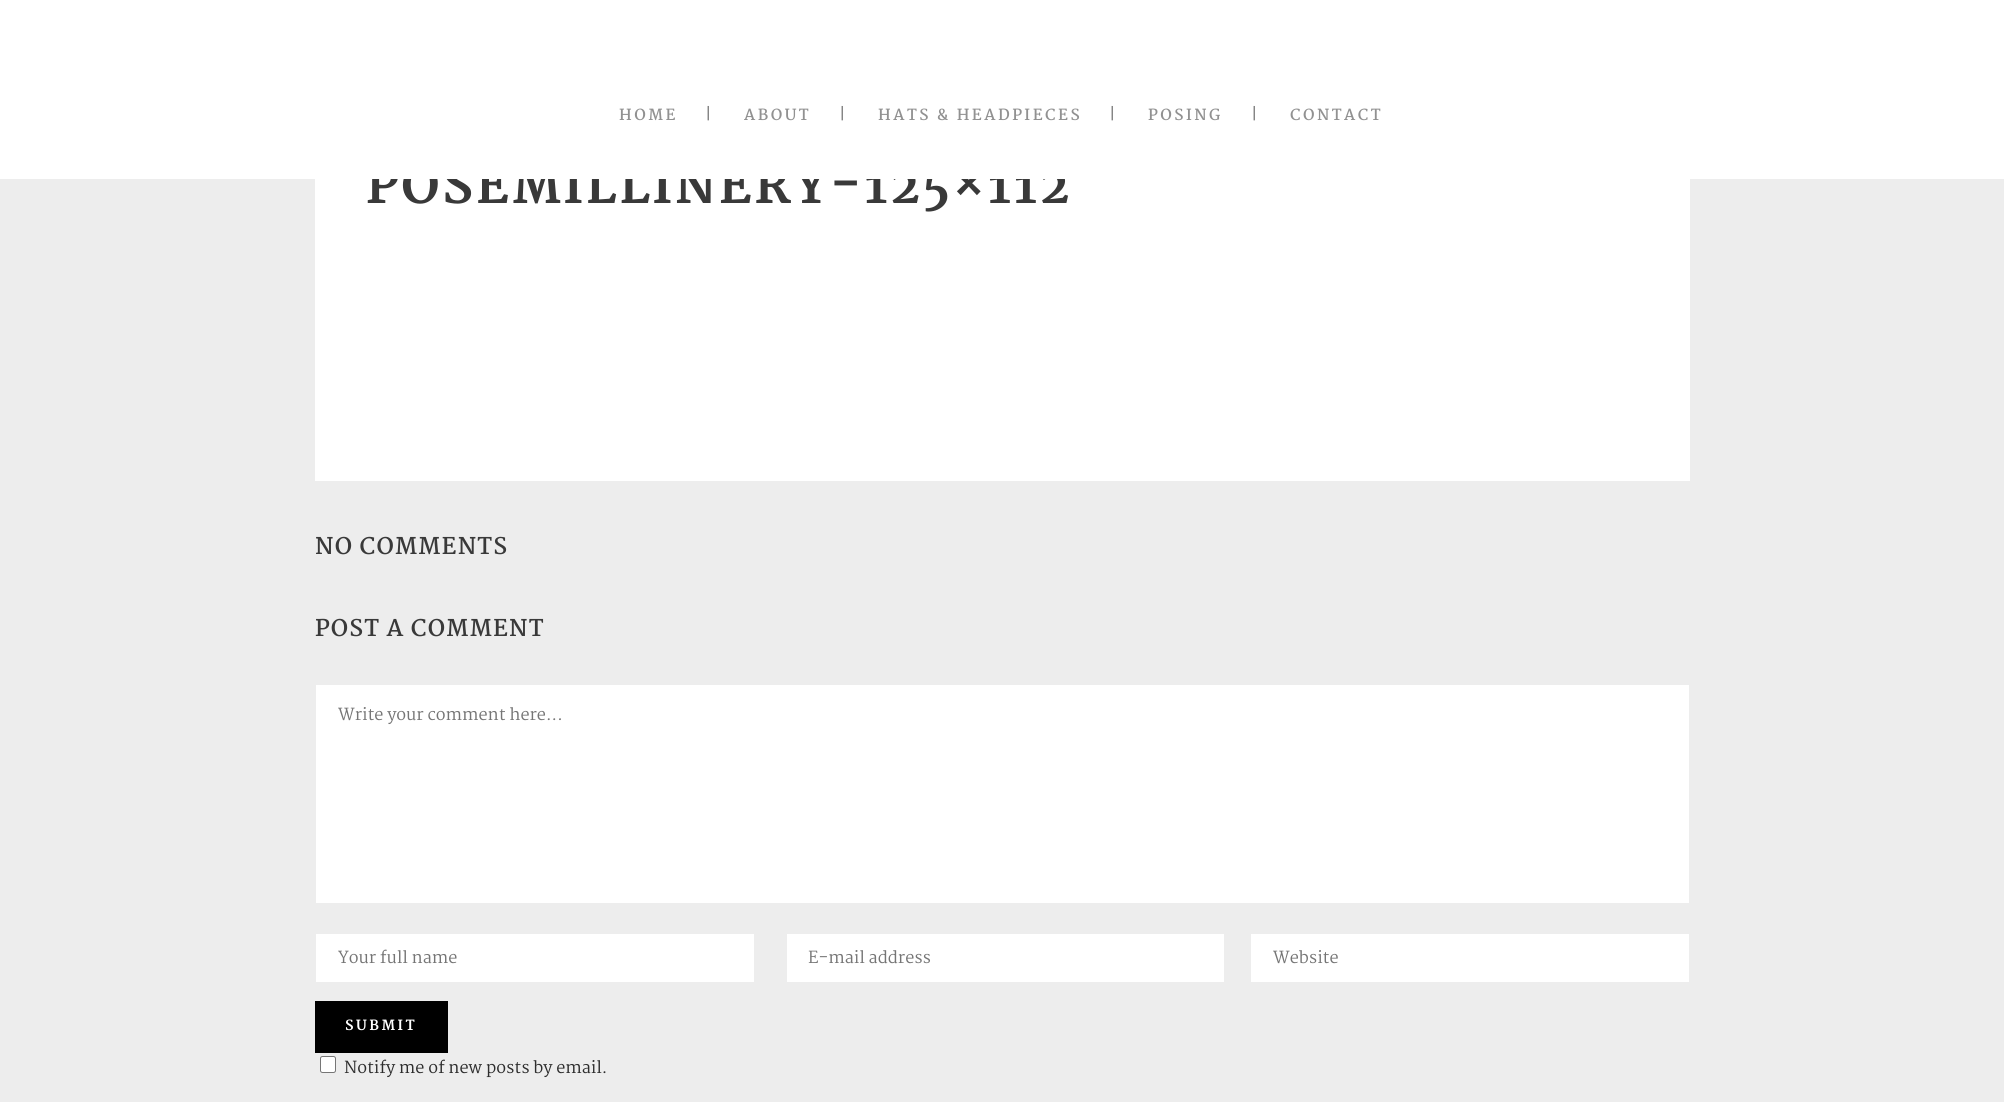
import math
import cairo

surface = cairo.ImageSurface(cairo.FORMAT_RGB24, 2004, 1102)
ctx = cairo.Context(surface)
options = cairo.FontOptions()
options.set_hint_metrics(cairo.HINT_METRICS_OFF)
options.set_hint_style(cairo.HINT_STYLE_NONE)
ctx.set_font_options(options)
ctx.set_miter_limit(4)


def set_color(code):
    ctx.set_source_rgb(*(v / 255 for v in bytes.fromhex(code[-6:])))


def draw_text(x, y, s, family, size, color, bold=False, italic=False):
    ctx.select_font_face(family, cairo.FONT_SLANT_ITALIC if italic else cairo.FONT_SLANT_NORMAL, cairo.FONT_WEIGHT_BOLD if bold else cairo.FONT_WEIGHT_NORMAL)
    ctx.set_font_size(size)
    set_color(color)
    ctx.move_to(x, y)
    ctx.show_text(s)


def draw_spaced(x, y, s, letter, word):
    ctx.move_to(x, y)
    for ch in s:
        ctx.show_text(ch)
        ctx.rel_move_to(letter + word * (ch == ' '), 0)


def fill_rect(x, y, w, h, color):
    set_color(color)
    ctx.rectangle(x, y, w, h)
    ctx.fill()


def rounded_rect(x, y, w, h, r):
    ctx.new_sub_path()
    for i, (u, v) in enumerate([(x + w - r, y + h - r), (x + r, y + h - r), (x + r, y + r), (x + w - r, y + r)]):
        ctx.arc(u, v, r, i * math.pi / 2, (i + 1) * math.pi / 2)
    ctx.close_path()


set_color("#ededed")
ctx.paint()
fill_rect(315, 179, 1375, 302, "#ffffff")
ctx.select_font_face("Martel ExtraBold")
ctx.set_font_size(50)
set_color("#393939")
draw_spaced(366, 203, "POSEMILLINERY-125×112", 2.5, 0)
fill_rect(0, 0, 2004, 179, "#ffffff")
ctx.select_font_face("Martel", cairo.FONT_SLANT_NORMAL, cairo.FONT_WEIGHT_BOLD)
ctx.set_font_size(15)
set_color("#919191")
draw_spaced(619, 120, "HOME", 2.5, 0)
draw_text(705, 119, "|", "Martel", 15, "#696969")
ctx.select_font_face("Martel", cairo.FONT_SLANT_NORMAL, cairo.FONT_WEIGHT_BOLD)
set_color("#919191")
draw_spaced(744, 120, "ABOUT", 2.5, 0)
draw_text(839, 119, "|", "Martel", 15, "#696969")
ctx.select_font_face("Martel", cairo.FONT_SLANT_NORMAL, cairo.FONT_WEIGHT_BOLD)
set_color("#919191")
draw_spaced(878, 120, "HATS & HEADPIECES", 2.5, 0)
draw_text(1109, 119, "|", "Martel", 15, "#696969")
ctx.select_font_face("Martel", cairo.FONT_SLANT_NORMAL, cairo.FONT_WEIGHT_BOLD)
set_color("#919191")
draw_spaced(1148, 120, "POSING", 2.5, 0)
draw_text(1251, 119, "|", "Martel", 15, "#696969")
ctx.select_font_face("Martel", cairo.FONT_SLANT_NORMAL, cairo.FONT_WEIGHT_BOLD)
set_color("#919191")
draw_spaced(1290, 120, "CONTACT", 2.5, 0)
ctx.set_font_size(22.5)
set_color("#393939")
draw_spaced(315, 554, "NO COMMENTS", 1.25, 0)
draw_spaced(315, 636, "POST A COMMENT", 1.25, 0)
fill_rect(316, 685, 1373, 218, "#ffffff")
draw_text(338, 720, "Write your comment here...", "Martel", 16.25, "#757575")
fill_rect(316, 934, 438, 48, "#ffffff")
draw_text(338, 963, "Your full name", "Martel", 16.25, "#757575")
fill_rect(787, 934, 437, 48, "#ffffff")
draw_text(808, 963, "E-mail address", "Martel", 16.25, "#757575")
fill_rect(1251, 934, 438, 48, "#ffffff")
draw_text(1273, 963, "Website", "Martel", 16.25, "#757575")
fill_rect(315, 1001, 133, 52, "#000000")
ctx.select_font_face("Martel ExtraBold")
ctx.set_font_size(13.75)
set_color("#ffffff")
draw_spaced(345, 1030, "SUBMIT", 2.5, 0)
rounded_rect(320.5, 1056.5, 15, 16, 2)
ctx.fill_preserve()
set_color("#767676")
ctx.set_line_width(1)
ctx.stroke()
draw_text(344, 1073, "Notify me of new posts by email.", "Martel", 16.25, "#2d2d2d")
surface.write_to_png("output.png")
